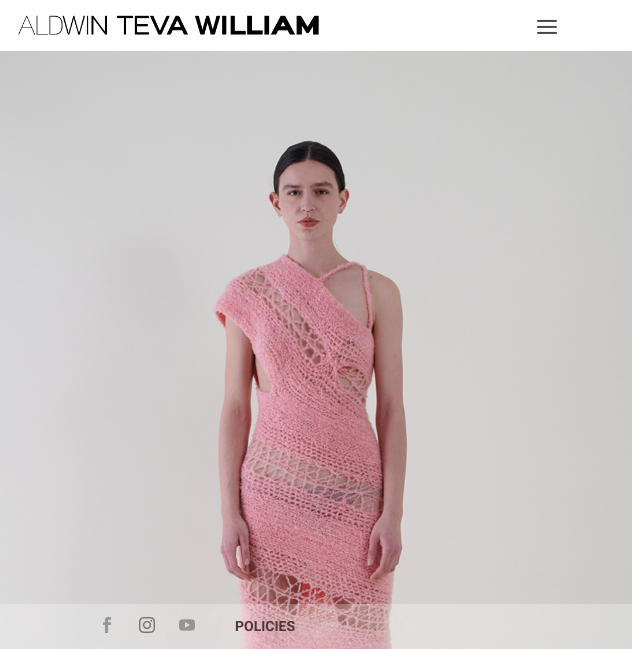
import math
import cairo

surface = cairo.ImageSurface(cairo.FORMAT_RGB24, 632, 649)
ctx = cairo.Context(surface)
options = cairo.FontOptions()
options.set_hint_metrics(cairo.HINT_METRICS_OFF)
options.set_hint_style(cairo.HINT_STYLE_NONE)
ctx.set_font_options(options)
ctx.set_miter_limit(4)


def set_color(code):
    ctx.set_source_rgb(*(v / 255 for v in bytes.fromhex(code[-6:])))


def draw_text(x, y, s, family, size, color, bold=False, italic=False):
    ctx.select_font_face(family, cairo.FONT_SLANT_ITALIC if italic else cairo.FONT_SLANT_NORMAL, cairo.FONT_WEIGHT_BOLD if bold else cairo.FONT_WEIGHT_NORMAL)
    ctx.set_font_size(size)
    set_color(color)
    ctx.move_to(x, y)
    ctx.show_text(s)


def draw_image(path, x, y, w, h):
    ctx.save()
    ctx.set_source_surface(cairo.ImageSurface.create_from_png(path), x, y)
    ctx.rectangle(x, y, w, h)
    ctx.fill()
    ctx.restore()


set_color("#ffffff")
ctx.paint()
draw_image("assets/img1.png", 18, 15, 301, 20)
draw_image("assets/img2.png", 537, 19, 20, 15)
draw_image("assets/img3.png", 0, 51, 632, 598)
ctx.set_source_rgba(1, 1, 1, 0.28)
ctx.rectangle(0, 604, 632, 45)
ctx.fill()
draw_image("assets/img4.png", 103, 617, 8, 16)
draw_image("assets/img5.png", 139, 617, 16, 16)
draw_image("assets/img6.png", 179, 619, 16, 12)
draw_text(235, 631, "POLICIES", "Roboto", 14, "#4a373a", bold=True)
surface.write_to_png("output.png")
